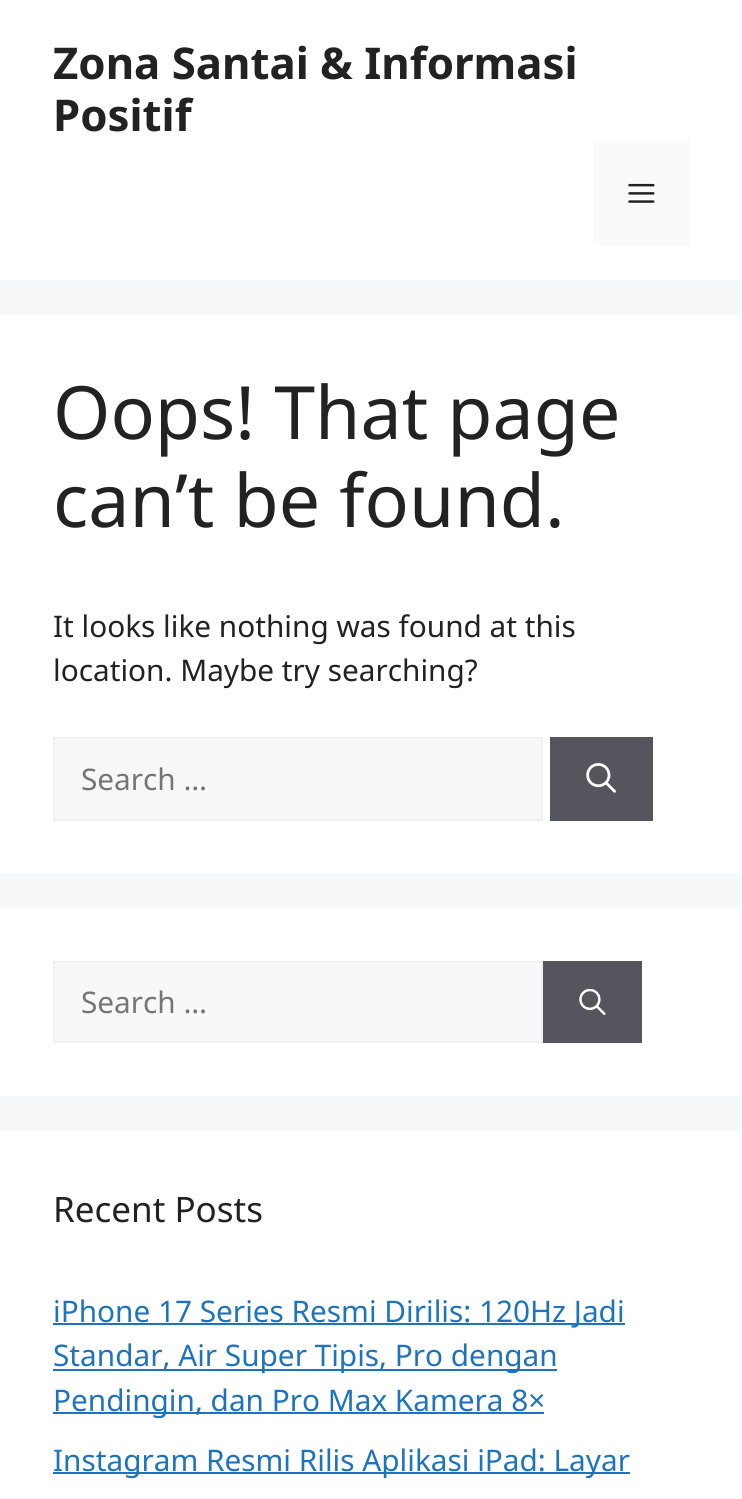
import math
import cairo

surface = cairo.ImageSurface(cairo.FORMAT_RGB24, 742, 1499)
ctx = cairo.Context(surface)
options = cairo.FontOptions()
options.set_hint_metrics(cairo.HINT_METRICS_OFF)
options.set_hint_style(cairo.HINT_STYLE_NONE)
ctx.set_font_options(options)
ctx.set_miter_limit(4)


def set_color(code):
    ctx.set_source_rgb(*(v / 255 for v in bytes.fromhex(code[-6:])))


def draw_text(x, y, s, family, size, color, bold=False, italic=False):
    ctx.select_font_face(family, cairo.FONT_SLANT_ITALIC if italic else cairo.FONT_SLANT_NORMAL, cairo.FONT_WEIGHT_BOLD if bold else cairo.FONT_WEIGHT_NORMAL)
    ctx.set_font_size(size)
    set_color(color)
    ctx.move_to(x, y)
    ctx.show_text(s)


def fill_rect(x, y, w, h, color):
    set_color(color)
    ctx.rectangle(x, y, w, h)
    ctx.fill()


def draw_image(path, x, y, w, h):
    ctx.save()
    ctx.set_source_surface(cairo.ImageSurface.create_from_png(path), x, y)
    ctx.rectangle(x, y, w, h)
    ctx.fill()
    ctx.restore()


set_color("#f7f8f9")
ctx.paint()
fill_rect(0, 0, 742, 280, "#ffffff")
draw_text(53, 79, "Zona Santai & Informasi", "Noto Sans", 43.75, "#222222", bold=True)
draw_text(53, 131, "Positif", "Noto Sans", 43.75, "#222222", bold=True)
fill_rect(593, 140, 97, 105, "#fafafa")
draw_image("assets/img1.png", 628, 183, 27, 20)
fill_rect(0, 315, 742, 558, "#ffffff")
draw_text(53, 439, "Oops! That page", "Noto Sans", 73.5, "#222222")
draw_text(53, 527, "can’t be found.", "Noto Sans", 73.5, "#222222")
draw_text(53, 637, "It looks like nothing was found at this", "Noto Sans", 29.75, "#222222")
draw_text(53, 681, "location. Maybe try searching?", "Noto Sans", 29.75, "#222222")
set_color("#f7f8f9")
ctx.rectangle(54, 738, 488, 82)
ctx.fill_preserve()
set_color("#f0f0f0")
ctx.stroke()
draw_text(81, 790, "Search …", "Noto Sans", 29.75, "#757575")
fill_rect(550, 737, 103, 84, "#55555e")
draw_image("assets/img2.png", 586, 763, 30, 30)
fill_rect(0, 908, 742, 188, "#ffffff")
set_color("#f7f8f9")
ctx.rectangle(54, 962, 488, 80)
ctx.fill_preserve()
set_color("#f0f0f0")
ctx.stroke()
draw_text(81, 1013, "Search …", "Noto Sans", 29.75, "#757575")
fill_rect(543, 961, 99, 82, "#55555e")
draw_image("assets/img3.png", 579, 989, 27, 26)
fill_rect(0, 1131, 742, 368, "#ffffff")
draw_text(53, 1222, "Recent Posts", "Noto Sans", 35, "#222222")
fill_rect(53, 1323, 572, 2, "#1e73be")
draw_text(53, 1322, "iPhone 17 Series Resmi Dirilis: 120Hz Jadi", "Noto Sans", 29.75, "#1e73be")
fill_rect(53, 1369, 504, 2, "#1e73be")
draw_text(53, 1366, "Standar, Air Super Tipis, Pro dengan", "Noto Sans", 29.75, "#1e73be")
fill_rect(53, 1412, 491, 2, "#1e73be")
draw_text(53, 1411, "Pendingin, dan Pro Max Kamera 8×", "Noto Sans", 29.75, "#1e73be")
fill_rect(53, 1472, 577, 2, "#1e73be")
draw_text(53, 1471, "Instagram Resmi Rilis Aplikasi iPad: Layar", "Noto Sans", 29.75, "#1e73be")
surface.write_to_png("output.png")
